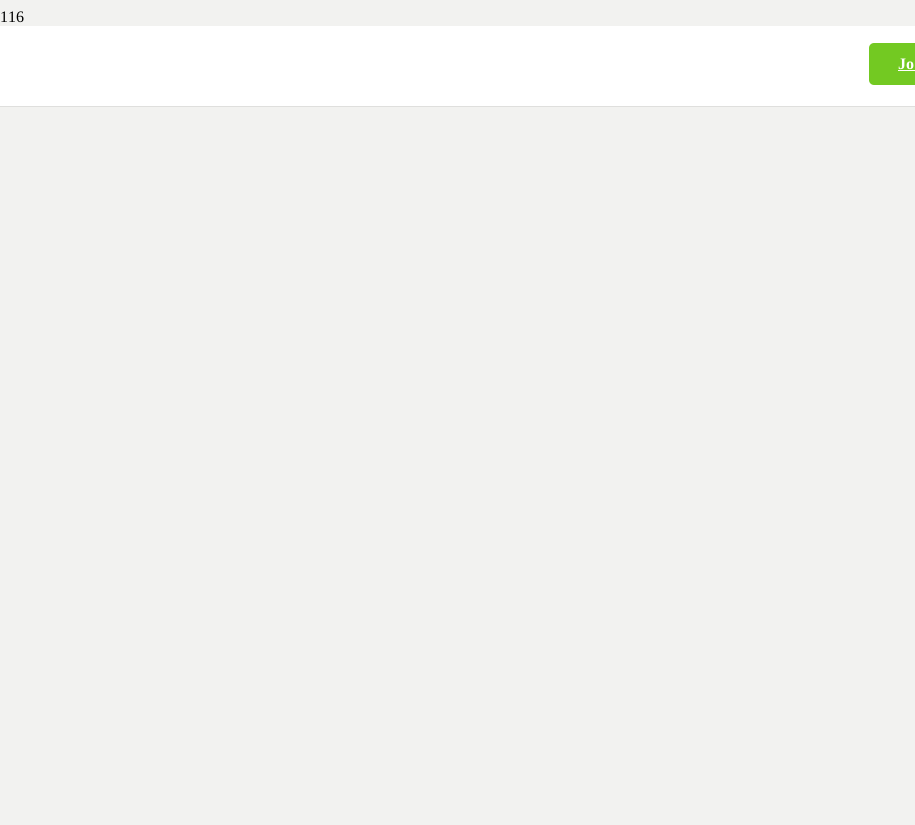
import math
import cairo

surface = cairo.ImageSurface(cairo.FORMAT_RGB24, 915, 825)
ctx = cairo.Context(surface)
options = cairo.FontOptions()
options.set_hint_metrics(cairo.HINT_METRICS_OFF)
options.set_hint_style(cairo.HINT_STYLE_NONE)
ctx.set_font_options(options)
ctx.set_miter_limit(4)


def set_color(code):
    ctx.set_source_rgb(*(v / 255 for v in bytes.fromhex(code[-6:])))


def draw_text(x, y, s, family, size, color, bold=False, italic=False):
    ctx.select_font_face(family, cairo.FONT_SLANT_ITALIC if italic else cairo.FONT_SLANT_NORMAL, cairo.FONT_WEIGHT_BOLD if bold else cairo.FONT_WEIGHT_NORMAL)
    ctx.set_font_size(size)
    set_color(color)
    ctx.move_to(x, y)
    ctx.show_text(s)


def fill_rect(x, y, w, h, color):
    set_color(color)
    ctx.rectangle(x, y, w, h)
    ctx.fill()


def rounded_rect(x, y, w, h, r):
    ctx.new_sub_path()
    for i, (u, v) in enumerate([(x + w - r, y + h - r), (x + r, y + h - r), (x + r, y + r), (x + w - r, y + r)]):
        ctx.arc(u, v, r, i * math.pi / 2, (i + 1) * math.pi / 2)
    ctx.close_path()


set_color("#f2f2f0")
ctx.paint()
draw_text(0, 22, "116", "Liberation Serif", 16, "#000000")
fill_rect(0, 106, 915, 1, "#dfdfdd")
fill_rect(0, 26, 915, 80, "#ffffff")
set_color("#73c922")
rounded_rect(869, 43, 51, 42, 5)
ctx.fill()
draw_text(898, 69, "Jo", "Liberation Serif", 16, "#ffffff", bold=True)
fill_rect(898, 70, 17, 1, "#ffffff")
surface.write_to_png("output.png")
